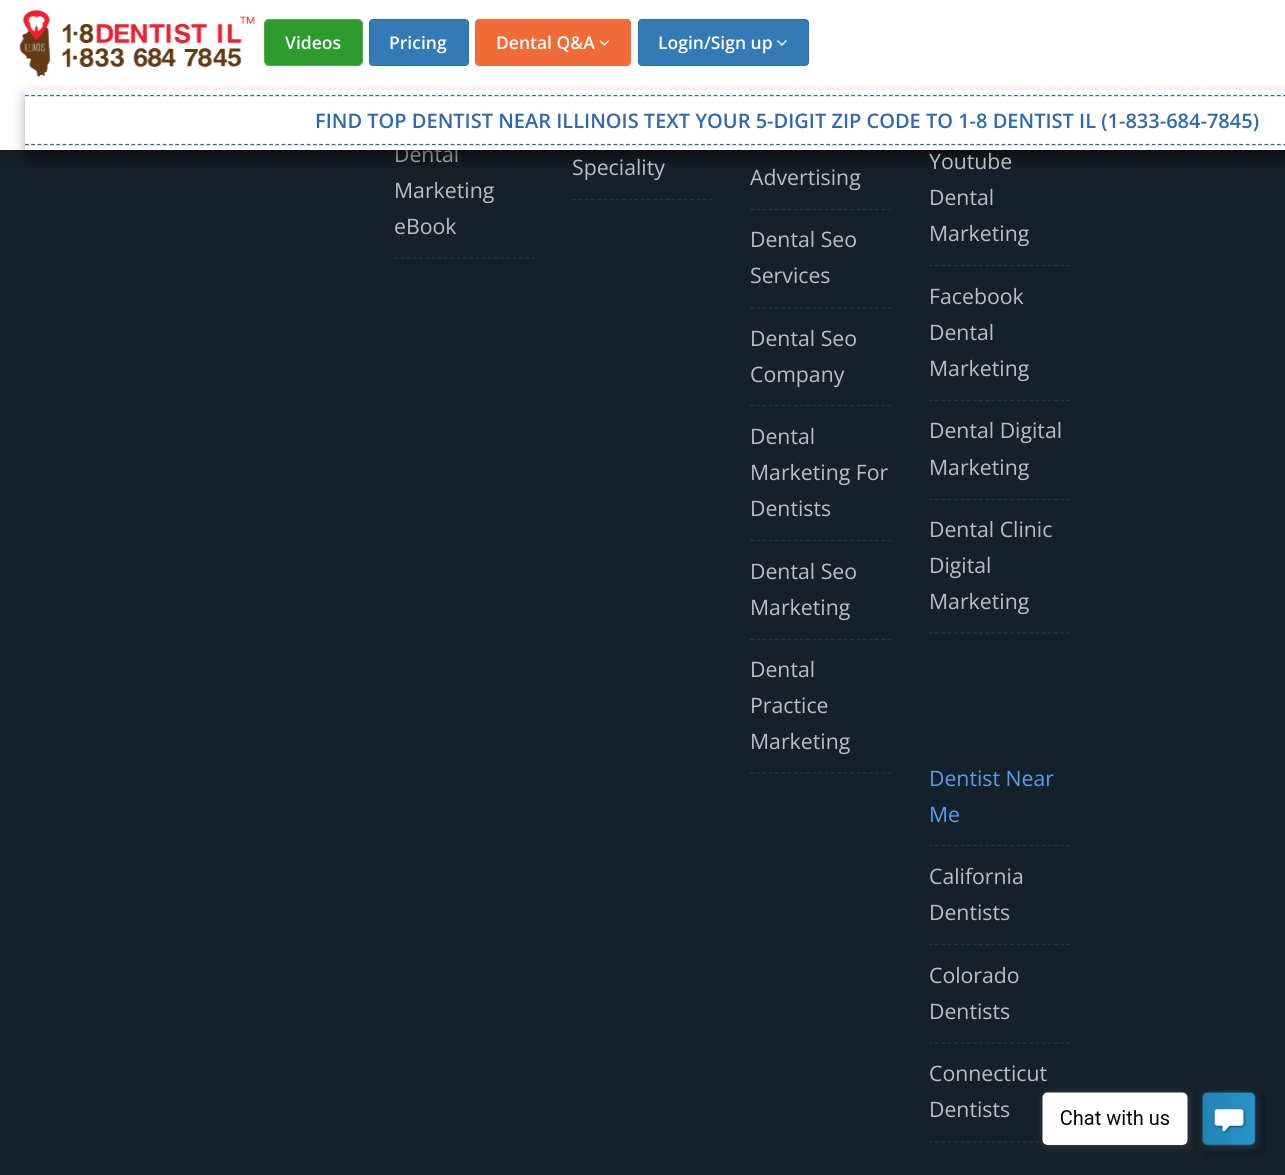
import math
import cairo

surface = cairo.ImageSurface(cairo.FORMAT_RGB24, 1285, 1175)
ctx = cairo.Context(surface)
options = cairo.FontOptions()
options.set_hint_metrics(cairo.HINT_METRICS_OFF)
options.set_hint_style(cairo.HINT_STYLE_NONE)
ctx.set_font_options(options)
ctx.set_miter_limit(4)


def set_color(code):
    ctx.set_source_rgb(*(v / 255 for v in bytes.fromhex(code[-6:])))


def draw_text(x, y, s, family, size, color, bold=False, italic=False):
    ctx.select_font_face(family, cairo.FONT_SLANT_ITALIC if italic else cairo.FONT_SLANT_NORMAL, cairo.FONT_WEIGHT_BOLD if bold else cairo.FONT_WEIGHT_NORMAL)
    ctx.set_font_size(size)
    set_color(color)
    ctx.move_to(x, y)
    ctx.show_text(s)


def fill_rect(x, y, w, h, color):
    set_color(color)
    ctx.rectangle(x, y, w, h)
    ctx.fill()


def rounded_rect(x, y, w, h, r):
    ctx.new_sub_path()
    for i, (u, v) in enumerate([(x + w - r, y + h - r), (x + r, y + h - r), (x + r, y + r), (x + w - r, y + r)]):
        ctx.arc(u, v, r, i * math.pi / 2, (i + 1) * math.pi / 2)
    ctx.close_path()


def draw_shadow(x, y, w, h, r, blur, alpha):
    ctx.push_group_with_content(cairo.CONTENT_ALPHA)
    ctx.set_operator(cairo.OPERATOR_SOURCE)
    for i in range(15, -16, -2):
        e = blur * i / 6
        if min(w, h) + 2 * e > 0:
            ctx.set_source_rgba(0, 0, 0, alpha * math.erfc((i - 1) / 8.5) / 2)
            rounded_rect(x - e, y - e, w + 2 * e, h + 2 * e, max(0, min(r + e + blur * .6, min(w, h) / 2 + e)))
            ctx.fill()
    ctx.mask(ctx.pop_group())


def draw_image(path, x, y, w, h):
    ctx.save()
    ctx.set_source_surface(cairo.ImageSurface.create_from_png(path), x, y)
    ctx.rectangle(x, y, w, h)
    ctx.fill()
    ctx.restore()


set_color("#14212b")
ctx.paint()
ctx.new_path()
ctx.move_to(572.5, 199.5)
ctx.line_to(712.5, 199.5)
set_color("#333333")
ctx.set_line_width(1.2)
ctx.set_dash([3.75, 2.44])
ctx.stroke()
set_color("#000000")
draw_shadow(0, 13, 1285, 150, 0, 12.5, 0.1)
draw_text(394, 162, "Dental", "Open Sans", 21.25, "#bbbfc1")
fill_rect(0, 0, 1285, 150, "#ffffff")
draw_image("assets/img1.png", 19, 10, 236, 67)
set_color("#2c9d2c")
rounded_rect(264.5, 19.5, 98, 46, 4.5)
ctx.fill_preserve()
set_color("#4cae4c")
ctx.set_line_width(1)
ctx.set_dash([])
ctx.stroke()
draw_text(285, 49, "Videos", "Open Sans SemiBold", 17.5, "#ffffff")
set_color("#337ab7")
rounded_rect(369.5, 19.5, 99, 46, 3.5)
ctx.fill_preserve()
set_color("#2e6da4")
ctx.stroke()
draw_text(389, 49, "Pricing", "Open Sans SemiBold", 17.5, "#ffffff")
set_color("#f16b38")
rounded_rect(475.5, 19.5, 155, 46, 3.5)
ctx.fill_preserve()
ctx.stroke()
draw_text(496, 49, "Dental Q&A", "Open Sans SemiBold", 17.5, "#ffffff")
draw_image("assets/img2.png", 599, 40, 11, 6)
set_color("#337ab7")
rounded_rect(638.5, 19.5, 170, 46, 3.5)
ctx.fill_preserve()
set_color("#2e6da4")
ctx.stroke()
draw_text(658, 49, "Login/Sign up", "Open Sans SemiBold", 17.5, "#ffffff")
draw_image("assets/img3.png", 777, 40, 10, 6)
ctx.save()
ctx.set_fill_rule(cairo.FILL_RULE_EVEN_ODD)
ctx.new_path()
ctx.move_to(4, 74)
ctx.line_to(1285, 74)
ctx.line_to(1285, 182)
ctx.line_to(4, 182)
ctx.close_path()
ctx.move_to(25, 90)
ctx.line_to(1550, 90)
ctx.line_to(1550, 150)
ctx.line_to(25, 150)
ctx.close_path()
ctx.clip()
set_color("#000000")
draw_shadow(28, 98, 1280, 60, 0, 7.5, 0.5)
ctx.restore()
ctx.save()
ctx.rectangle(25, 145, 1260, 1)
ctx.clip()
set_color("#000000")
draw_shadow(25, 96, 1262, 50, 0, 0.5, 0.08)
ctx.restore()
fill_rect(25, 96, 1260, 1, "#ebebeb")
ctx.new_path()
ctx.move_to(25, 95.5)
ctx.line_to(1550, 95.5)
set_color("#2e68b1")
ctx.set_line_width(1.2)
ctx.set_dash([3.75, 2.51])
ctx.stroke()
ctx.new_path()
ctx.move_to(25, 144.5)
ctx.line_to(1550, 144.5)
ctx.stroke()
draw_text(315, 128, "FIND TOP DENTIST NEAR ILLINOIS TEXT YOUR 5-DIGIT ZIP CODE TO 1-8 DENTIST IL (1-833-684-7845)", "Open Sans SemiBold", 20, "#2e68b1")
ctx.new_path()
ctx.move_to(394, 258)
ctx.line_to(535, 258)
set_color("#333333")
ctx.set_dash([3.75, 2.5])
ctx.stroke()
draw_text(394, 198, "Marketing", "Open Sans", 21.25, "#bbbfc1")
draw_text(394, 234, "eBook", "Open Sans", 21.25, "#bbbfc1")
draw_text(572, 175, "Speciality", "Open Sans", 21.25, "#bbbfc1")
ctx.new_path()
ctx.move_to(750, 209.5)
ctx.line_to(891, 209.5)
set_color("#333333")
ctx.stroke()
draw_text(750, 185, "Advertising", "Open Sans", 21.25, "#bbbfc1")
ctx.new_path()
ctx.move_to(750, 308)
ctx.line_to(891, 308)
set_color("#333333")
ctx.stroke()
draw_text(750, 247, "Dental Seo", "Open Sans", 21.25, "#bbbfc1")
draw_text(750, 283, "Services", "Open Sans", 21.25, "#bbbfc1")
ctx.new_path()
ctx.move_to(750, 405.5)
ctx.line_to(891, 405.5)
set_color("#333333")
ctx.stroke()
draw_text(750, 346, "Dental Seo", "Open Sans", 21.25, "#bbbfc1")
draw_text(750, 382, "Company", "Open Sans", 21.25, "#bbbfc1")
ctx.new_path()
ctx.move_to(750, 540.5)
ctx.line_to(891, 540.5)
set_color("#333333")
ctx.stroke()
draw_text(750, 444, "Dental", "Open Sans", 21.25, "#bbbfc1")
draw_text(750, 480, "Marketing For", "Open Sans", 21.25, "#bbbfc1")
draw_text(750, 516, "Dentists", "Open Sans", 21.25, "#bbbfc1")
ctx.new_path()
ctx.move_to(750, 639.5)
ctx.line_to(891, 639.5)
set_color("#333333")
ctx.stroke()
draw_text(750, 579, "Dental Seo", "Open Sans", 21.25, "#bbbfc1")
draw_text(750, 615, "Marketing", "Open Sans", 21.25, "#bbbfc1")
ctx.new_path()
ctx.move_to(750, 773)
ctx.line_to(891, 773)
set_color("#333333")
ctx.stroke()
draw_text(750, 677, "Dental", "Open Sans", 21.25, "#bbbfc1")
draw_text(750, 713, "Practice", "Open Sans", 21.25, "#bbbfc1")
draw_text(750, 749, "Marketing", "Open Sans", 21.25, "#bbbfc1")
ctx.new_path()
ctx.move_to(929, 265.5)
ctx.line_to(1070, 265.5)
set_color("#333333")
ctx.stroke()
draw_text(929, 169, "Youtube", "Open Sans", 21.25, "#bbbfc1")
draw_text(929, 205, "Dental", "Open Sans", 21.25, "#bbbfc1")
draw_text(929, 241, "Marketing", "Open Sans", 21.25, "#bbbfc1")
ctx.new_path()
ctx.move_to(929, 400.5)
ctx.line_to(1070, 400.5)
set_color("#333333")
ctx.stroke()
draw_text(929, 304, "Facebook", "Open Sans", 21.25, "#bbbfc1")
draw_text(929, 340, "Dental", "Open Sans", 21.25, "#bbbfc1")
draw_text(929, 376, "Marketing", "Open Sans", 21.25, "#bbbfc1")
ctx.new_path()
ctx.move_to(929, 499.5)
ctx.line_to(1070, 499.5)
set_color("#333333")
ctx.stroke()
draw_text(929, 438, "Dental Digital", "Open Sans", 21.25, "#bbbfc1")
draw_text(929, 475, "Marketing", "Open Sans", 21.25, "#bbbfc1")
ctx.new_path()
ctx.move_to(929, 633)
ctx.line_to(1070, 633)
set_color("#333333")
ctx.stroke()
draw_text(929, 537, "Dental Clinic", "Open Sans", 21.25, "#bbbfc1")
draw_text(929, 573, "Digital", "Open Sans", 21.25, "#bbbfc1")
draw_text(929, 609, "Marketing", "Open Sans", 21.25, "#bbbfc1")
ctx.new_path()
ctx.move_to(929, 845.5)
ctx.line_to(1070, 845.5)
set_color("#333333")
ctx.stroke()
draw_text(929, 786, "Dentist Near", "Open Sans", 21.25, "#5d9cec")
draw_text(929, 822, "Me", "Open Sans", 21.25, "#5d9cec")
ctx.new_path()
ctx.move_to(929, 944.5)
ctx.line_to(1070, 944.5)
set_color("#333333")
ctx.stroke()
draw_text(929, 884, "California", "Open Sans", 21.25, "#bbbfc1")
draw_text(929, 920, "Dentists", "Open Sans", 21.25, "#bbbfc1")
ctx.new_path()
ctx.move_to(929, 1043)
ctx.line_to(1070, 1043)
set_color("#333333")
ctx.stroke()
draw_text(929, 983, "Colorado", "Open Sans", 21.25, "#bbbfc1")
draw_text(929, 1019, "Dentists", "Open Sans", 21.25, "#bbbfc1")
ctx.new_path()
ctx.move_to(929, 1142)
ctx.line_to(1070, 1142)
set_color("#333333")
ctx.stroke()
draw_text(929, 1081, "Connecticut", "Open Sans", 21.25, "#bbbfc1")
draw_text(929, 1117, "Dentists", "Open Sans", 21.25, "#bbbfc1")
fill_rect(1204, 1094, 62, 62, "#121e27")
draw_image("assets/img4.png", 1038, 1088, 224, 64)
surface.write_to_png("output.png")
